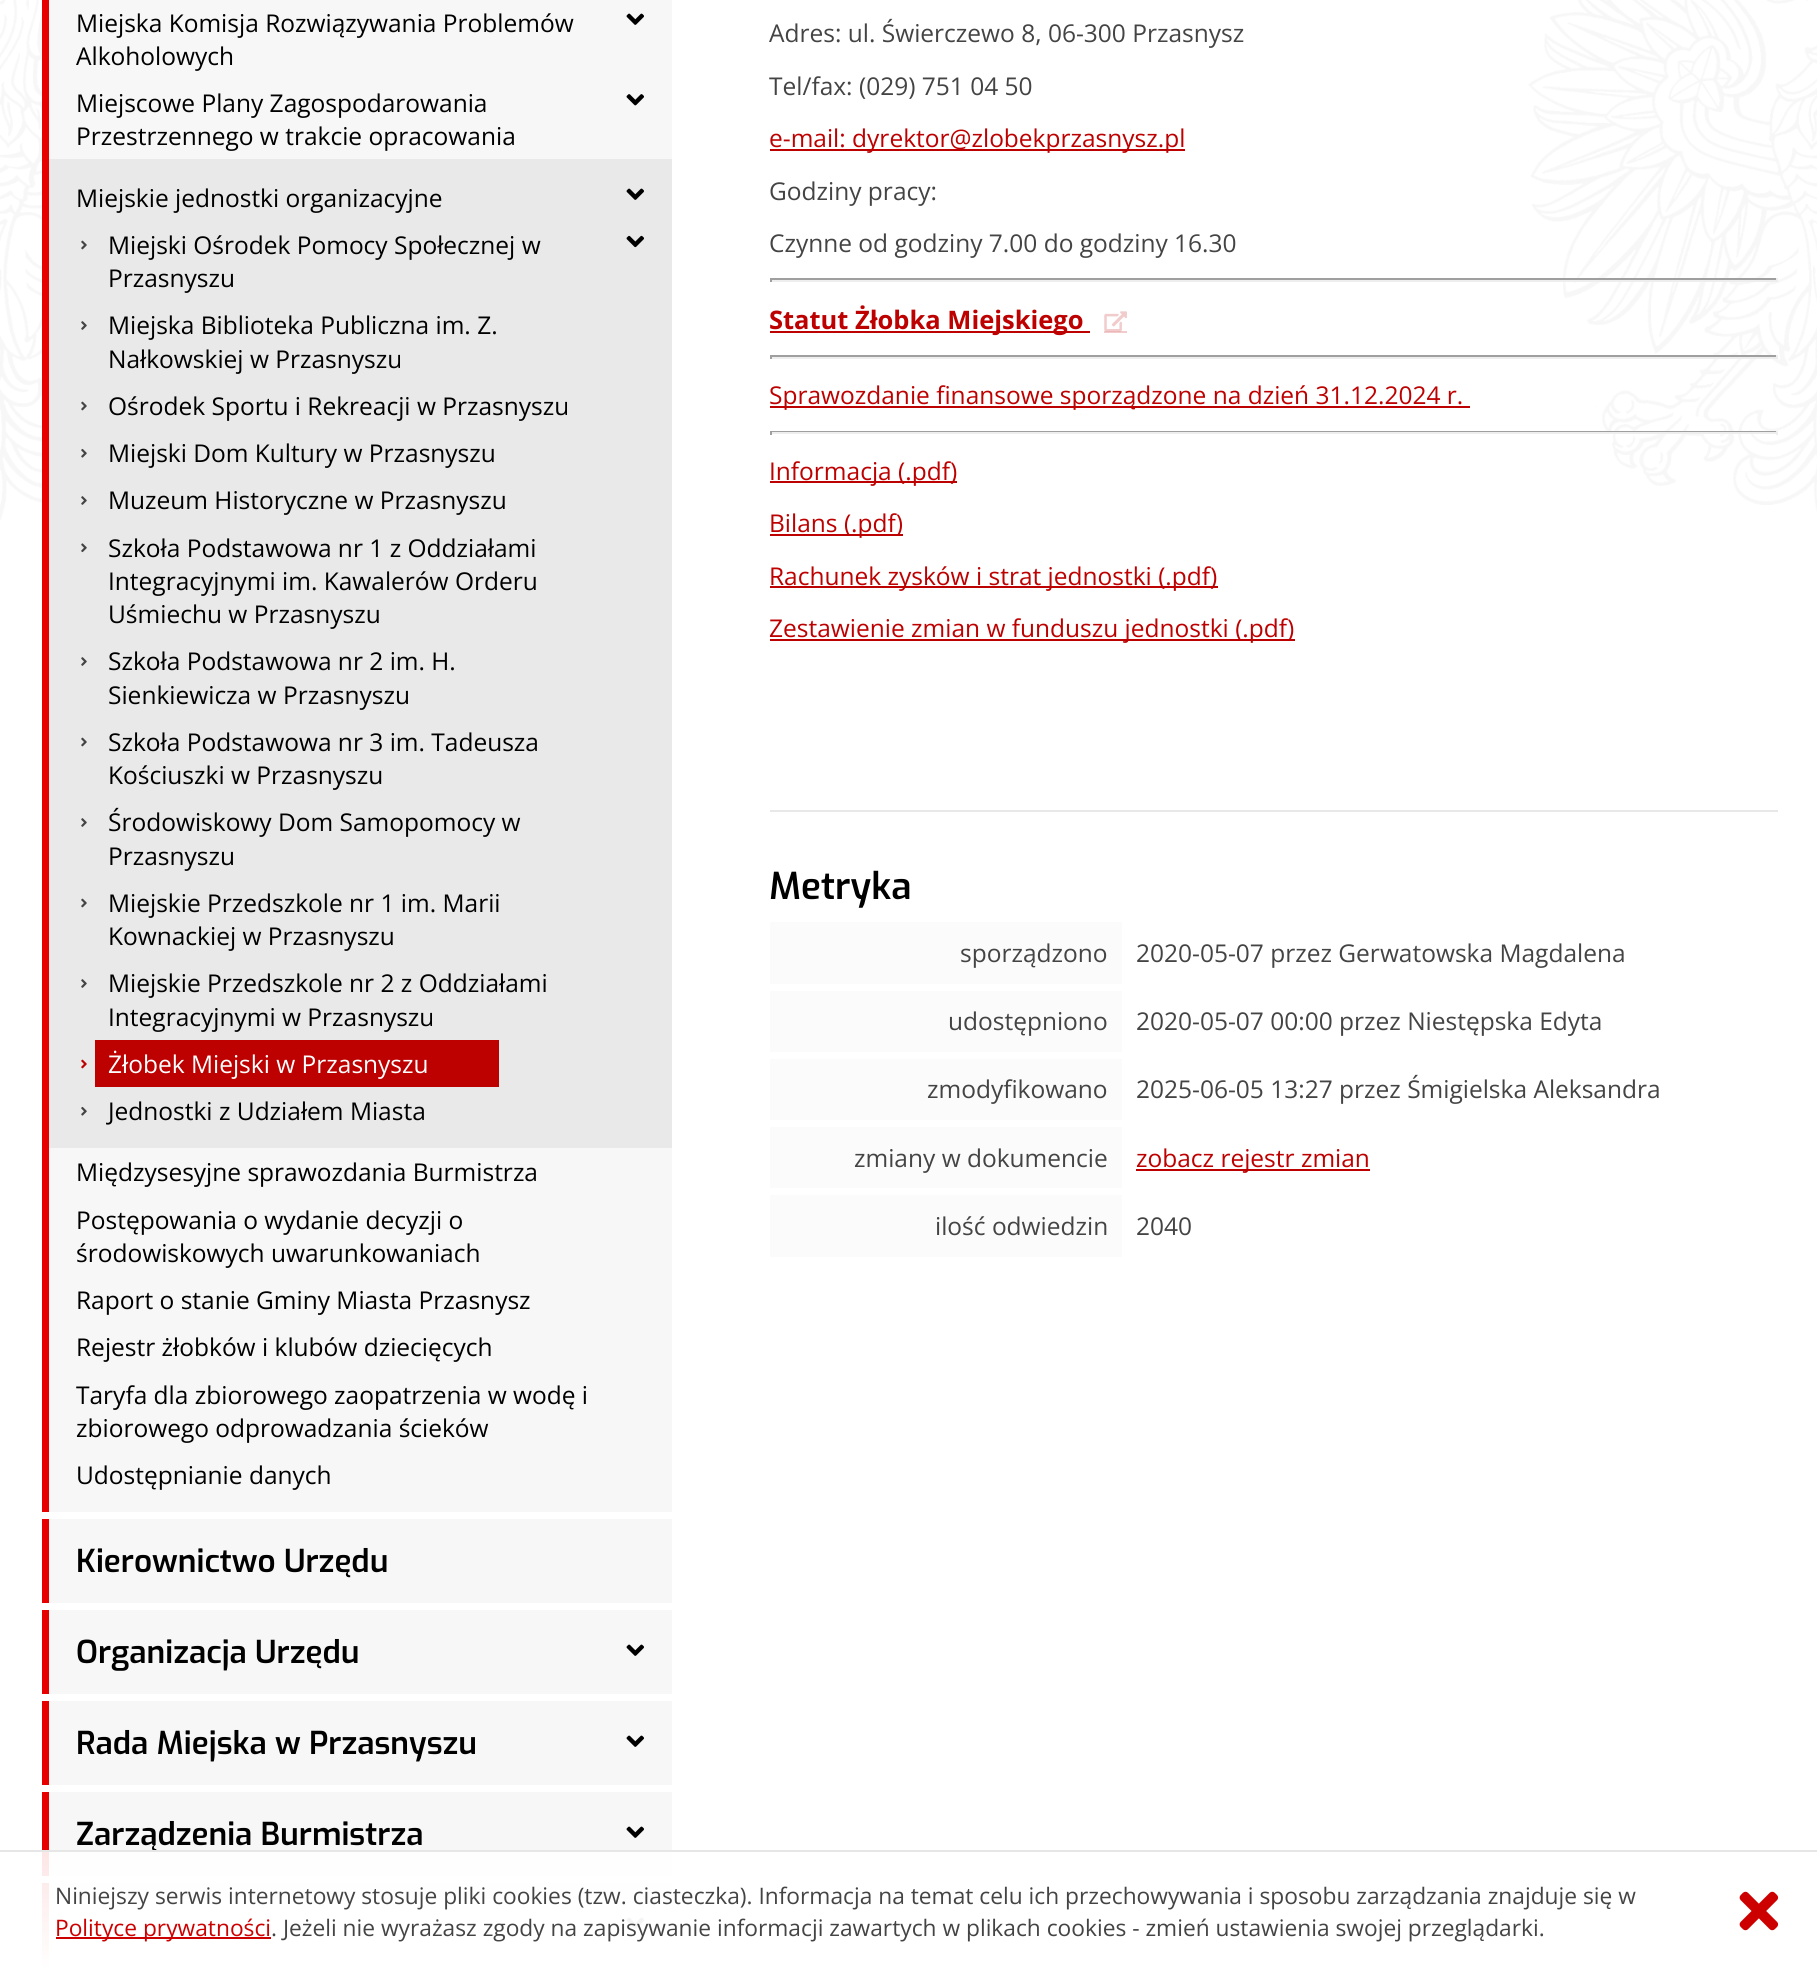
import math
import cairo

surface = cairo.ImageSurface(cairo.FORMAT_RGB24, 1817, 1969)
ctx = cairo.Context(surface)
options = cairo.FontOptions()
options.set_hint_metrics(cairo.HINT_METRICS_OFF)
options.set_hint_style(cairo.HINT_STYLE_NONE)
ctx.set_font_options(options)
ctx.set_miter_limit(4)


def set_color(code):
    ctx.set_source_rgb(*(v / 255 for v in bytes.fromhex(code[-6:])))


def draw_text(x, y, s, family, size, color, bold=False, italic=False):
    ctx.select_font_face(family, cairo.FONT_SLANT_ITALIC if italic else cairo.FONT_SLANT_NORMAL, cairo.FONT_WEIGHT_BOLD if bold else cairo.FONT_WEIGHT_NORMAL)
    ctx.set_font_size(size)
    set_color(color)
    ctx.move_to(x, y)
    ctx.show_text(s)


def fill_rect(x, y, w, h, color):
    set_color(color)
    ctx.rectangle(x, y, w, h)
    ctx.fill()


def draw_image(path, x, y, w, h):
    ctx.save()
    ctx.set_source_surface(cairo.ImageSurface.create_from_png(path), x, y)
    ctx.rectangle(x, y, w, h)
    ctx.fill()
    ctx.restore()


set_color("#ffffff")
ctx.paint()
draw_image("assets/img1.png", 0, 0, 1817, 520)
fill_rect(49, 0, 623, 1512, "#f7f7f7")
fill_rect(42, 0, 7, 1512, "#e70000")
draw_text(76, 32, "Miejska Komisja Rozwiązywania Problemów", "Open Sans", 24.5, "#000000")
draw_image("assets/img2.png", 626, 13, 18, 12)
draw_text(76, 65, "Alkoholowych", "Open Sans", 24.5, "#000000")
draw_text(76, 112, "Miejscowe Plany Zagospodarowania", "Open Sans", 24.5, "#000000")
draw_image("assets/img3.png", 626, 94, 18, 12)
draw_text(76, 145, "Przestrzennego w trakcie opracowania", "Open Sans", 24.5, "#000000")
fill_rect(49, 159, 623, 989, "#e9e9e9")
draw_text(76, 207, "Miejskie jednostki organizacyjne", "Open Sans", 24.5, "#000000")
draw_image("assets/img4.png", 626, 188, 18, 12)
draw_image("assets/img5.png", 81, 240, 6, 10)
draw_text(108, 254, "Miejski Ośrodek Pomocy Społecznej w", "Open Sans", 24.5, "#000000")
draw_image("assets/img6.png", 626, 235, 18, 13)
draw_text(108, 287, "Przasnyszu", "Open Sans", 24.5, "#000000")
draw_image("assets/img7.png", 81, 321, 6, 9)
draw_text(108, 334, "Miejska Biblioteka Publiczna im. Z.", "Open Sans", 24.5, "#000000")
draw_text(108, 368, "Nałkowskiej w Przasnyszu", "Open Sans", 24.5, "#000000")
draw_image("assets/img5.png", 81, 401, 6, 10)
draw_text(108, 415, "Ośrodek Sportu i Rekreacji w Przasnyszu", "Open Sans", 24.5, "#000000")
draw_image("assets/img8.png", 81, 448, 6, 10)
draw_text(108, 462, "Miejski Dom Kultury w Przasnyszu", "Open Sans", 24.5, "#000000")
draw_image("assets/img7.png", 81, 496, 6, 9)
draw_text(108, 509, "Muzeum Historyczne w Przasnyszu", "Open Sans", 24.5, "#000000")
draw_image("assets/img9.png", 81, 543, 6, 10)
draw_text(108, 557, "Szkoła Podstawowa nr 1 z Oddziałami", "Open Sans", 24.5, "#000000")
draw_text(108, 590, "Integracyjnymi im. Kawalerów Orderu", "Open Sans", 24.5, "#000000")
draw_text(108, 623, "Uśmiechu w Przasnyszu", "Open Sans", 24.5, "#000000")
draw_image("assets/img7.png", 81, 657, 6, 9)
draw_text(108, 670, "Szkoła Podstawowa nr 2 im. H.", "Open Sans", 24.5, "#000000")
draw_text(108, 704, "Sienkiewicza w Przasnyszu", "Open Sans", 24.5, "#000000")
draw_image("assets/img5.png", 81, 737, 6, 10)
draw_text(108, 751, "Szkoła Podstawowa nr 3 im. Tadeusza", "Open Sans", 24.5, "#000000")
draw_text(108, 784, "Kościuszki w Przasnyszu", "Open Sans", 24.5, "#000000")
draw_image("assets/img7.png", 81, 818, 6, 9)
draw_text(108, 831, "Środowiskowy Dom Samopomocy w", "Open Sans", 24.5, "#000000")
draw_text(108, 865, "Przasnyszu", "Open Sans", 24.5, "#000000")
draw_image("assets/img5.png", 81, 898, 6, 10)
draw_text(108, 912, "Miejskie Przedszkole nr 1 im. Marii", "Open Sans", 24.5, "#000000")
draw_text(108, 945, "Kownackiej w Przasnyszu", "Open Sans", 24.5, "#000000")
draw_image("assets/img7.png", 81, 979, 6, 9)
draw_text(108, 992, "Miejskie Przedszkole nr 2 z Oddziałami", "Open Sans", 24.5, "#000000")
draw_text(108, 1026, "Integracyjnymi w Przasnyszu", "Open Sans", 24.5, "#000000")
draw_image("assets/img10.png", 81, 1059, 6, 10)
fill_rect(95, 1040, 404, 47, "#bd0000")
draw_text(108, 1073, "Żłobek Miejski w Przasnyszu", "Open Sans", 24.5, "#ffffff")
draw_image("assets/img8.png", 81, 1106, 6, 10)
draw_text(108, 1120, "Jednostki z Udziałem Miasta", "Open Sans", 24.5, "#000000")
draw_text(76, 1181, "Międzysesyjne sprawozdania Burmistrza", "Open Sans", 24.5, "#000000")
draw_text(76, 1229, "Postępowania o wydanie decyzji o", "Open Sans", 24.5, "#000000")
draw_text(76, 1262, "środowiskowych uwarunkowaniach", "Open Sans", 24.5, "#000000")
draw_text(76, 1309, "Raport o stanie Gminy Miasta Przasnysz", "Open Sans", 24.5, "#000000")
draw_text(76, 1356, "Rejestr żłobków i klubów dziecięcych", "Open Sans", 24.5, "#000000")
draw_text(76, 1404, "Taryfa dla zbiorowego zaopatrzenia w wodę i", "Open Sans", 24.5, "#000000")
draw_text(76, 1437, "zbiorowego odprowadzania ścieków", "Open Sans", 24.5, "#000000")
draw_text(76, 1484, "Udostępnianie danych", "Open Sans", 24.5, "#000000")
fill_rect(49, 1519, 623, 84, "#f7f7f7")
fill_rect(42, 1519, 7, 84, "#e70000")
draw_text(76, 1572, "Kierownictwo Urzędu", "Exo SemiBold", 31.5, "#000000")
fill_rect(49, 1610, 623, 84, "#f7f7f7")
fill_rect(42, 1610, 7, 84, "#e70000")
draw_text(76, 1663, "Organizacja Urzędu", "Exo SemiBold", 31.5, "#000000")
draw_image("assets/img2.png", 626, 1644, 18, 12)
fill_rect(49, 1701, 623, 84, "#f7f7f7")
fill_rect(42, 1701, 7, 84, "#e70000")
draw_text(76, 1754, "Rada Miejska w Przasnyszu", "Exo SemiBold", 31.5, "#000000")
draw_image("assets/img2.png", 626, 1735, 18, 12)
fill_rect(49, 1792, 623, 84, "#f7f7f7")
fill_rect(42, 1792, 7, 84, "#e70000")
draw_text(76, 1845, "Zarządzenia Burmistrza", "Exo SemiBold", 31.5, "#000000")
draw_image("assets/img2.png", 626, 1826, 18, 12)
fill_rect(49, 1883, 623, 81, "#f7f7f7")
fill_rect(42, 1883, 7, 84, "#e70000")
draw_image("assets/img2.png", 626, 1917, 18, 12)
fill_rect(770, 810, 1008, 2, "#e8e8e8")
draw_text(769, 42, "Adres: ul. Świerczewo 8, 06-300 Przasnysz", "Open Sans", 24.5, "#444444")
draw_text(769, 95, "Tel/fax: (029) 751 04 50", "Open Sans", 24.5, "#444444")
fill_rect(770, 149, 415, 2, "#bd0000")
draw_text(769, 147, "e-mail: dyrektor@zlobekprzasnysz.pl", "Open Sans", 24.5, "#bd0000")
draw_text(769, 200, "Godziny pracy:", "Open Sans", 24.5, "#444444")
draw_text(769, 252, "Czynne od godziny 7.00 do godziny 16.30", "Open Sans", 24.5, "#444444")
fill_rect(770, 278, 1008, 2, "#9f9f9f")
fill_rect(1776, 278, 2, 4, "#eeeeee")
fill_rect(770, 280, 1008, 2, "#eeeeee")
fill_rect(770, 278, 2, 4, "#9f9f9f")
fill_rect(770, 331, 320, 2, "#bd0000")
draw_text(769, 329, "Statut Żłobka Miejskiego", "Open Sans", 25.5, "#bd0000", bold=True)
fill_rect(1104, 331, 23, 2, "#f2cccc")
draw_image("assets/img11.png", 1104, 311, 23, 21)
fill_rect(770, 355, 1008, 2, "#9f9f9f")
fill_rect(1776, 355, 2, 4, "#eeeeee")
fill_rect(770, 357, 1008, 2, "#eeeeee")
fill_rect(770, 355, 2, 4, "#9f9f9f")
fill_rect(770, 406, 700, 2, "#bd0000")
draw_text(769, 404, "Sprawozdanie finansowe sporządzone na dzień 31.12.2024 r.", "Open Sans", 24.5, "#bd0000")
fill_rect(770, 431, 1008, 1, "#9f9f9f")
fill_rect(1776, 431, 2, 4, "#eeeeee")
fill_rect(770, 432, 1008, 2, "#eeeeee")
fill_rect(770, 431, 2, 4, "#9f9f9f")
fill_rect(770, 481, 187, 2, "#bd0000")
draw_text(769, 480, "Informacja (.pdf)", "Open Sans", 24.5, "#bd0000")
fill_rect(770, 534, 133, 2, "#bd0000")
draw_text(769, 532, "Bilans (.pdf)", "Open Sans", 24.5, "#bd0000")
fill_rect(770, 586, 448, 2, "#bd0000")
draw_text(769, 585, "Rachunek zysków i strat jednostki (.pdf)", "Open Sans", 24.5, "#bd0000")
fill_rect(770, 639, 525, 2, "#bd0000")
draw_text(769, 637, "Zestawienie zmian w funduszu jednostki (.pdf)", "Open Sans", 24.5, "#bd0000")
draw_text(769, 899, "Metryka", "Exo SemiBold", 37, "#000000")
fill_rect(770, 922, 352, 62, "#fbfbfb")
draw_text(960, 962, "sporządzono", "Open Sans", 24.5, "#444444")
draw_text(1136, 962, "2020-05-07 przez Gerwatowska Magdalena", "Open Sans", 24.5, "#444444")
fill_rect(770, 991, 352, 61, "#fbfbfb")
draw_text(948, 1030, "udostępniono", "Open Sans", 24.5, "#444444")
draw_text(1136, 1030, "2020-05-07 00:00 przez Niestępska Edyta", "Open Sans", 24.5, "#444444")
fill_rect(770, 1059, 352, 61, "#fbfbfb")
draw_text(927, 1098, "zmodyfikowano", "Open Sans", 24.5, "#444444")
draw_text(1136, 1098, "2025-06-05 13:27 przez Śmigielska Aleksandra", "Open Sans", 24.5, "#444444")
fill_rect(770, 1127, 352, 61, "#fbfbfb")
draw_text(854, 1167, "zmiany w dokumencie", "Open Sans", 24.5, "#444444")
fill_rect(1136, 1169, 234, 2, "#bd0000")
draw_text(1136, 1167, "zobacz rejestr zmian", "Open Sans", 24.5, "#bd0000")
fill_rect(770, 1195, 352, 62, "#fbfbfb")
draw_text(935, 1235, "ilość odwiedzin", "Open Sans", 24.5, "#444444")
draw_text(1136, 1235, "2040", "Open Sans", 24.5, "#444444")
gradient = cairo.LinearGradient(909, 1852, 909, 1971)
gradient.add_color_stop_rgba(0, 1, 1, 1, 0.9)
gradient.add_color_stop_rgba(1, 1, 1, 1, 1)
ctx.set_source(gradient)
ctx.rectangle(42, 1852, 630, 115)
ctx.fill()
fill_rect(0, 1850, 1817, 2, "#e6e6e6")
draw_text(55, 1904, "Niniejszy serwis internetowy stosuje pliki cookies (tzw. ciasteczka). Informacja na temat celu ich przechowywania i sposobu zarządzania znajduje się w", "Open Sans", 22.75, "#444444")
fill_rect(56, 1937, 215, 2, "#cd0000")
draw_text(55, 1936, "Polityce prywatności", "Open Sans", 22.75, "#cd0000")
draw_text(271, 1936, ". Jeżeli nie wyrażasz zgody na zapisywanie informacji zawartych w plikach cookies - zmień ustawienia swojej przeglądarki.", "Open Sans", 22.75, "#444444")
draw_image("assets/img12.png", 1739, 1891, 40, 40)
surface.write_to_png("output.png")
